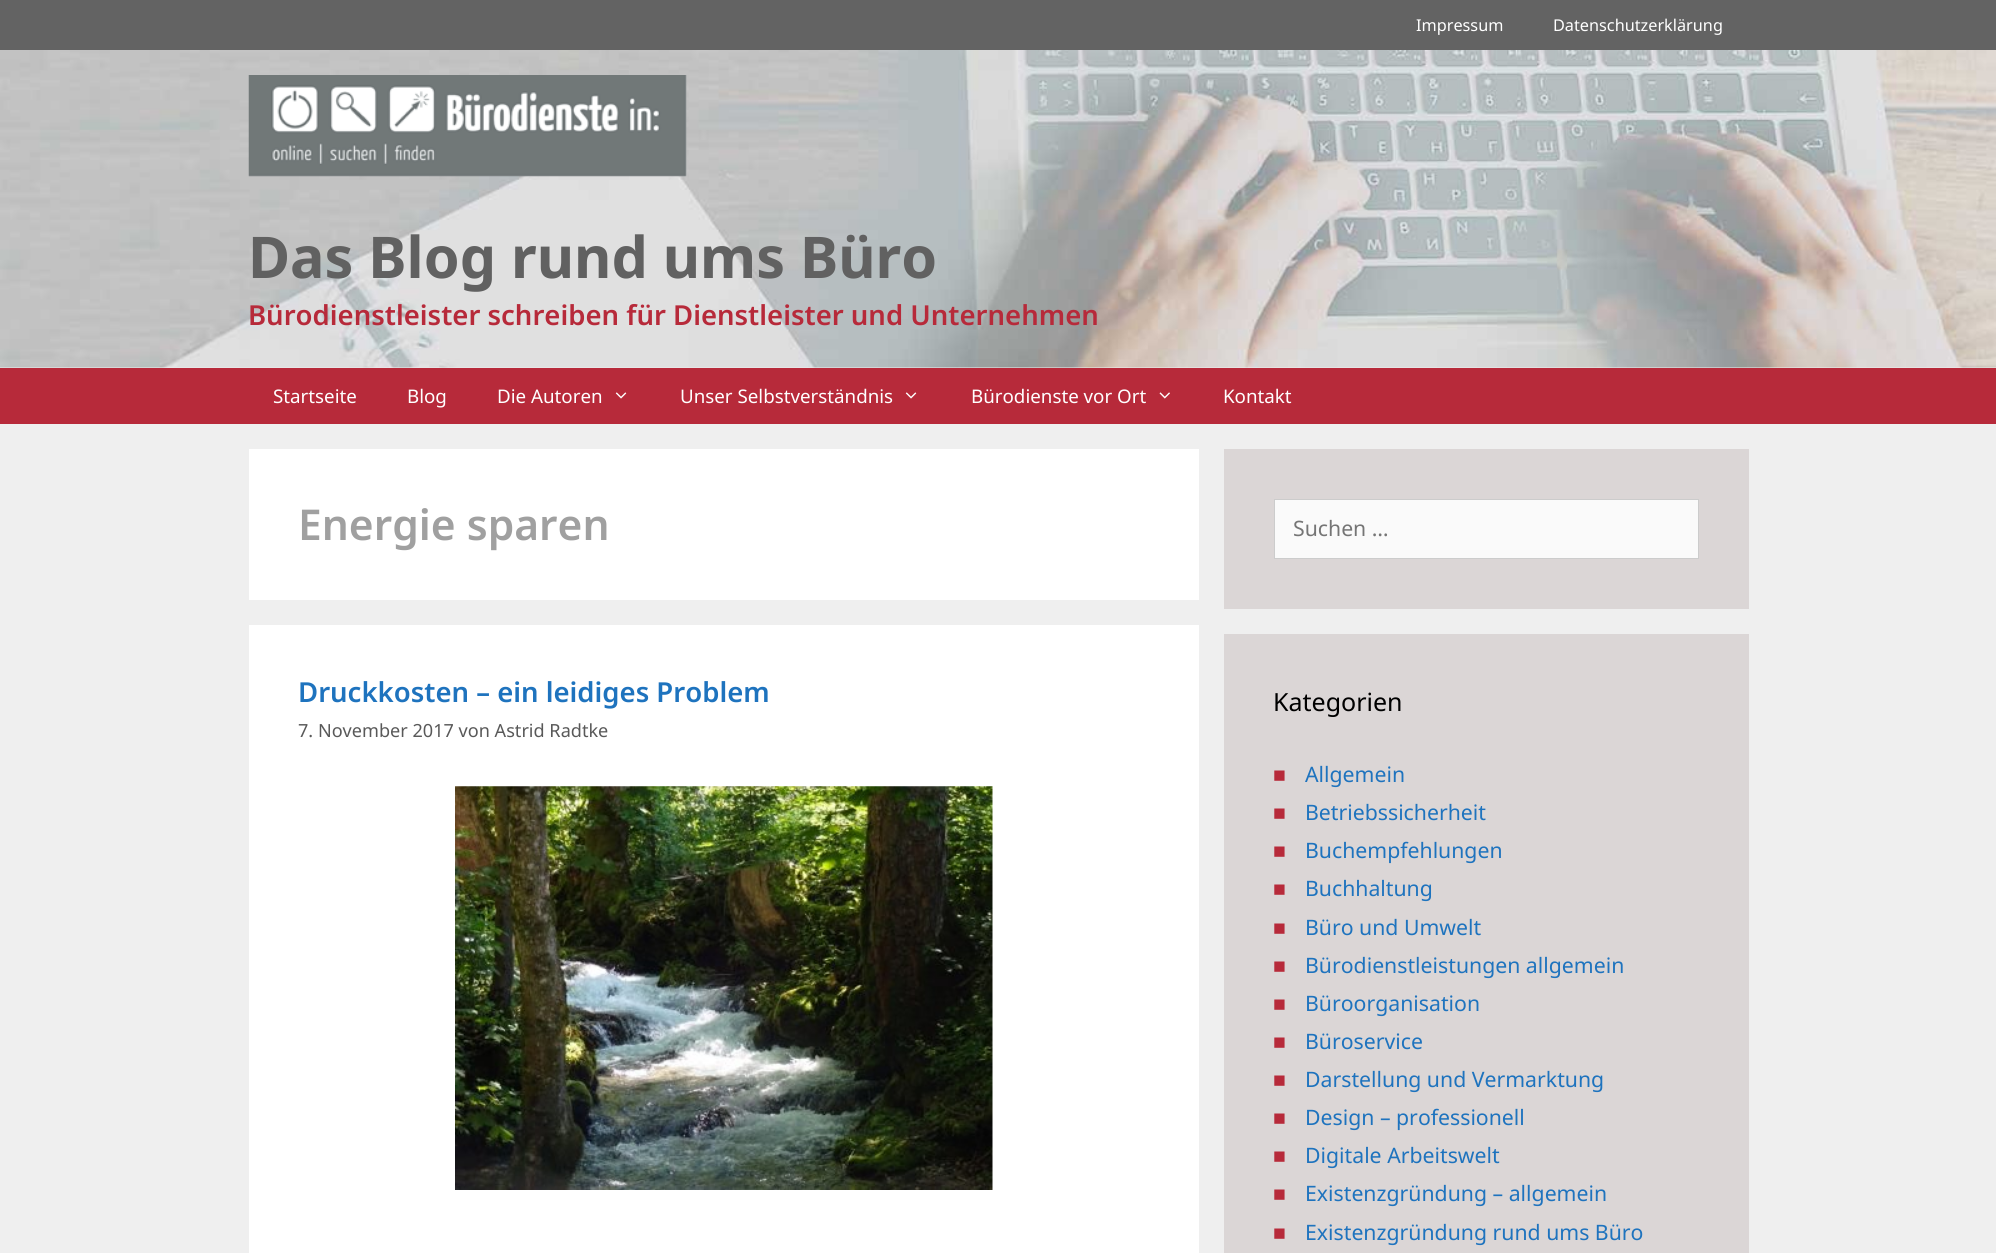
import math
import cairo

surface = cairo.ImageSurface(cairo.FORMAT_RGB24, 1996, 1253)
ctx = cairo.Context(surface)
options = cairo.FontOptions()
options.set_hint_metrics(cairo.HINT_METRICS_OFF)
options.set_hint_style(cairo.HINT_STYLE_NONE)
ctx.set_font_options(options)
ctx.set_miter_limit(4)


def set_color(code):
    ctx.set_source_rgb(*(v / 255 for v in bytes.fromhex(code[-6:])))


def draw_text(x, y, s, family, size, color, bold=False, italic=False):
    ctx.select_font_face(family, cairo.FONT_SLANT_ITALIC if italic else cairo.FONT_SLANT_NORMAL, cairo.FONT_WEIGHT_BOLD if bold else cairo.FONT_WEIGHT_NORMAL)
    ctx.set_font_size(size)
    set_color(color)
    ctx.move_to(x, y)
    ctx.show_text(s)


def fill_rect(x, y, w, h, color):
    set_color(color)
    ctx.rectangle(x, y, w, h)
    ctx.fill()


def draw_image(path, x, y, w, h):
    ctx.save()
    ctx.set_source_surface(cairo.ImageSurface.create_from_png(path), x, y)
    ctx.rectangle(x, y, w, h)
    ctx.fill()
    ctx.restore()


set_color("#efefef")
ctx.paint()
fill_rect(0, 0, 1996, 50, "#636363")
draw_text(1416, 31, "Impressum", "Noto Sans", 16.25, "#ffffff")
draw_text(1553, 31, "Datenschutzerklärung", "Noto Sans", 16.25, "#ffffff")
draw_image("assets/img1.png", 0, 50, 1996, 318)
draw_image("assets/img2.png", 248, 75, 439, 102)
draw_text(248, 278, "Das Blog rund ums Büro", "Noto Sans", 57.5, "#616161", bold=True)
draw_text(248, 325, "Bürodienstleister schreiben für Dienstleister und Unternehmen", "Noto Sans SemiBold", 27.5, "#b72a3a")
fill_rect(0, 368, 1996, 56, "#b72a3a")
draw_text(273, 403, "Startseite", "Noto Sans", 18.75, "#ffffff")
draw_text(407, 403, "Blog", "Noto Sans", 18.75, "#ffffff")
draw_text(497, 403, "Die Autoren", "Noto Sans", 18.75, "#ffffff")
draw_image("assets/img3.png", 615, 392, 12, 7)
draw_text(680, 403, "Unser Selbstverständnis", "Noto Sans", 18.75, "#ffffff")
draw_image("assets/img3.png", 905, 392, 12, 7)
draw_text(971, 403, "Bürodienste vor Ort", "Noto Sans", 18.75, "#ffffff")
draw_image("assets/img4.png", 1159, 392, 11, 7)
draw_text(1223, 403, "Kontakt", "Noto Sans", 18.75, "#ffffff")
fill_rect(249, 449, 950, 151, "#ffffff")
draw_text(298, 540, "Energie sparen", "Noto Sans SemiBold", 42.5, "#a0a0a0")
fill_rect(249, 625, 950, 628, "#ffffff")
draw_text(298, 702, "Druckkosten – ein leidiges Problem", "Noto Sans SemiBold", 27.5, "#1e73be")
draw_text(298, 737, "7. November 2017 von Astrid Radtke", "Noto Sans", 18.1, "#595959")
draw_image("assets/img5.png", 455, 786, 538, 404)
fill_rect(1224, 449, 525, 160, "#dbd6d6")
set_color("#fafafa")
ctx.rectangle(1274.5, 499.5, 424, 59)
ctx.fill_preserve()
set_color("#cccccc")
ctx.set_line_width(1)
ctx.stroke()
draw_text(1293, 536, "Suchen …", "Noto Sans", 21.25, "#757575")
fill_rect(1224, 634, 525, 619, "#dbd6d6")
draw_text(1273, 711, "Kategorien", "Noto Sans", 25, "#000000")
draw_text(1273, 782, "■", "Liberation Sans", 21.25, "#b72a3a", bold=True)
draw_text(1305, 782, "Allgemein", "Noto Sans", 21.25, "#1e73be")
draw_text(1273, 820, "■", "Liberation Sans", 21.25, "#b72a3a", bold=True)
draw_text(1305, 820, "Betriebssicherheit", "Noto Sans", 21.25, "#1e73be")
draw_text(1273, 858, "■", "Liberation Sans", 21.25, "#b72a3a", bold=True)
draw_text(1305, 858, "Buchempfehlungen", "Noto Sans", 21.25, "#1e73be")
draw_text(1273, 896, "■", "Liberation Sans", 21.25, "#b72a3a", bold=True)
draw_text(1305, 896, "Buchhaltung", "Noto Sans", 21.25, "#1e73be")
draw_text(1273, 935, "■", "Liberation Sans", 21.25, "#b72a3a", bold=True)
draw_text(1305, 935, "Büro und Umwelt", "Noto Sans", 21.25, "#1e73be")
draw_text(1273, 973, "■", "Liberation Sans", 21.25, "#b72a3a", bold=True)
draw_text(1305, 973, "Bürodienstleistungen allgemein", "Noto Sans", 21.25, "#1e73be")
draw_text(1273, 1011, "■", "Liberation Sans", 21.25, "#b72a3a", bold=True)
draw_text(1305, 1011, "Büroorganisation", "Noto Sans", 21.25, "#1e73be")
draw_text(1273, 1049, "■", "Liberation Sans", 21.25, "#b72a3a", bold=True)
draw_text(1305, 1049, "Büroservice", "Noto Sans", 21.25, "#1e73be")
draw_text(1273, 1087, "■", "Liberation Sans", 21.25, "#b72a3a", bold=True)
draw_text(1305, 1087, "Darstellung und Vermarktung", "Noto Sans", 21.25, "#1e73be")
draw_text(1273, 1125, "■", "Liberation Sans", 21.25, "#b72a3a", bold=True)
draw_text(1305, 1125, "Design – professionell", "Noto Sans", 21.25, "#1e73be")
draw_text(1273, 1163, "■", "Liberation Sans", 21.25, "#b72a3a", bold=True)
draw_text(1305, 1163, "Digitale Arbeitswelt", "Noto Sans", 21.25, "#1e73be")
draw_text(1273, 1201, "■", "Liberation Sans", 21.25, "#b72a3a", bold=True)
draw_text(1305, 1201, "Existenzgründung – allgemein", "Noto Sans", 21.25, "#1e73be")
draw_text(1273, 1240, "■", "Liberation Sans", 21.25, "#b72a3a", bold=True)
draw_text(1305, 1240, "Existenzgründung rund ums Büro", "Noto Sans", 21.25, "#1e73be")
surface.write_to_png("output.png")
